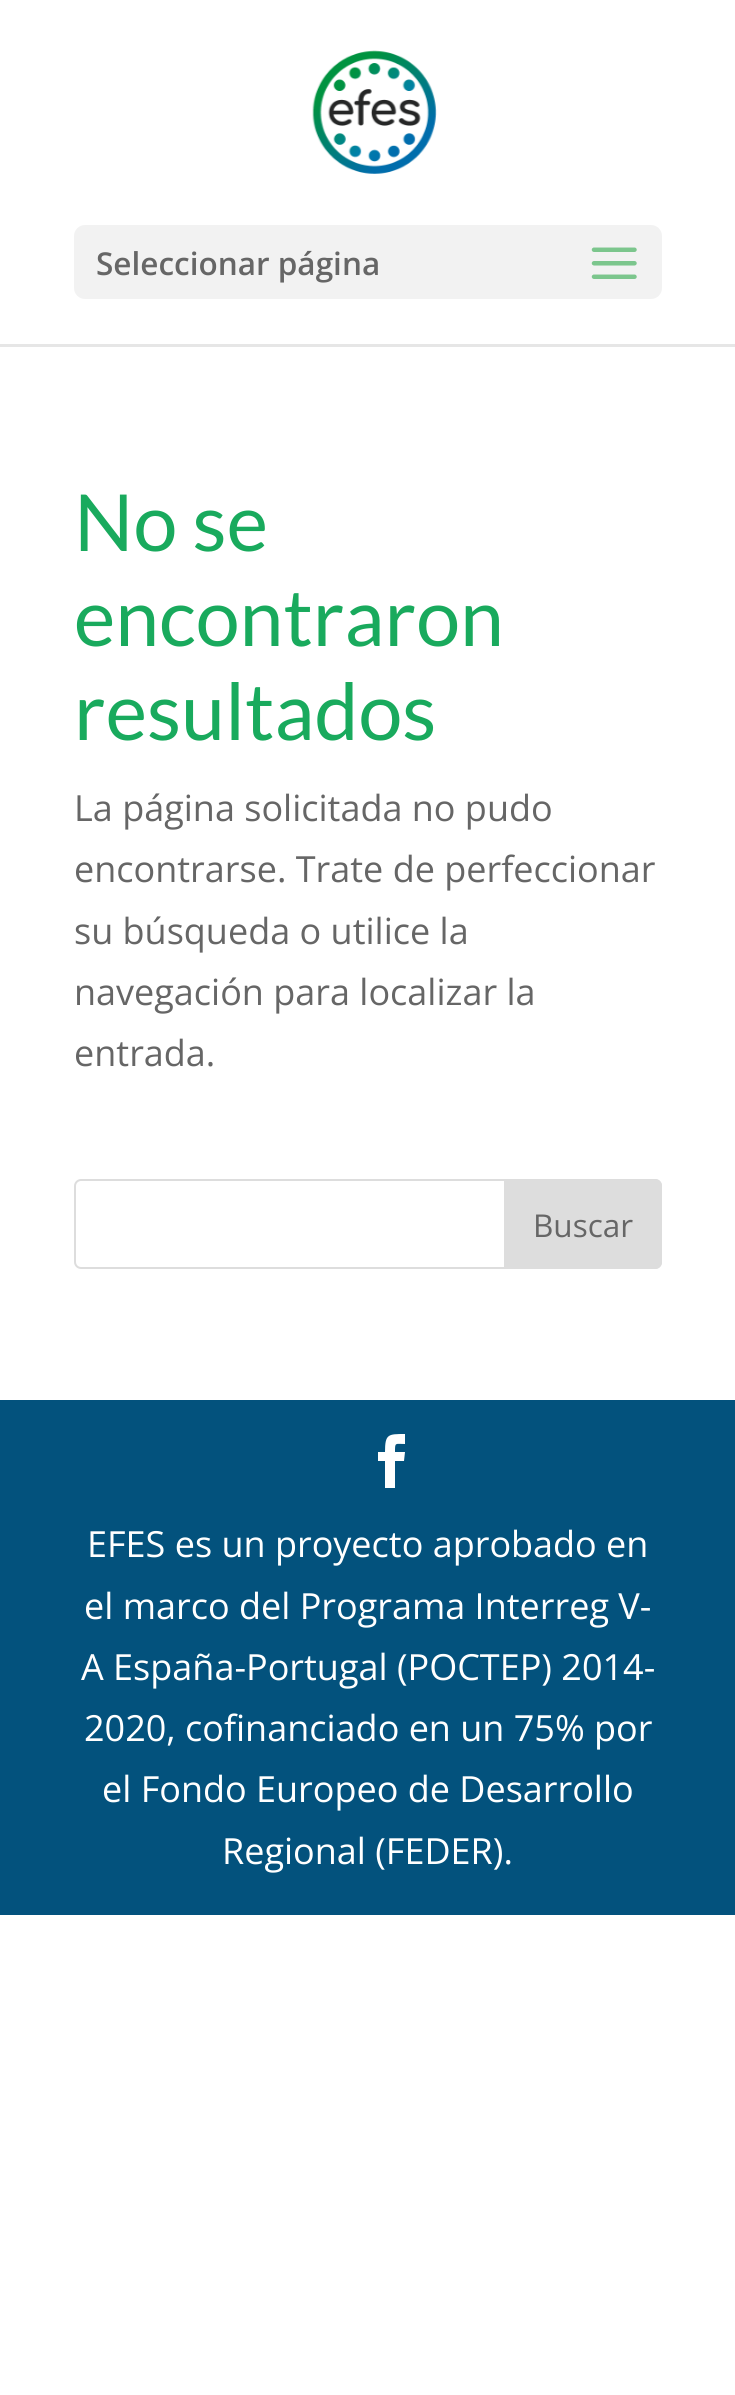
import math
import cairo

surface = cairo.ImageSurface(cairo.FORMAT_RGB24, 735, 2395)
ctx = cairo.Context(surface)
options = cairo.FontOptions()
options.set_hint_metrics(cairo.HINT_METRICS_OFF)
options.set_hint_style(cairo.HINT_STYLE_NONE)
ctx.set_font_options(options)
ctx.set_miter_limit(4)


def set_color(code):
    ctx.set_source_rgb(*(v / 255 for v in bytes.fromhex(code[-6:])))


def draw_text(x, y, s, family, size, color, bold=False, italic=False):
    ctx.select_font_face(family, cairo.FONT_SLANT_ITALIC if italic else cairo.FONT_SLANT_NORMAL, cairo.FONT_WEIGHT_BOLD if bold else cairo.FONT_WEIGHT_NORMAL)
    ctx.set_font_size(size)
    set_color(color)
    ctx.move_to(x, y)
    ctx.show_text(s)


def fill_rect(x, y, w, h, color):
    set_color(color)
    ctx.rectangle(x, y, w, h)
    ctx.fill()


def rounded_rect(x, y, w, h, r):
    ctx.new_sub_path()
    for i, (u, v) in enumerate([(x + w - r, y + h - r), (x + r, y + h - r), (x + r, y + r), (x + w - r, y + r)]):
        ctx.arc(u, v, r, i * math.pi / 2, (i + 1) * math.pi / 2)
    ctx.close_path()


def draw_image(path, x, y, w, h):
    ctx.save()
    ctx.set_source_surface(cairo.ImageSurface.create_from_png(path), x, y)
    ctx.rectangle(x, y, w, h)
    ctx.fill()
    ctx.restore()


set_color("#ffffff")
ctx.paint()
set_color("#e6e6e6")
ctx.new_path()
ctx.move_to(0, 344)
ctx.line_to(0, 347)
ctx.line_to(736, 347)
ctx.line_to(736, 2)
ctx.line_to(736, 344)
ctx.close_path()
ctx.fill()
draw_image("assets/img1.png", 312, 50, 125, 124)
set_color("#f2f2f2")
rounded_rect(74, 225, 588, 74, 11)
ctx.fill()
draw_text(96, 275, "Seleccionar página", "Open Sans SemiBold", 31.5, "#666666")
draw_image("assets/img2.png", 591, 247, 46, 32)
draw_text(74, 551, "No se", "Lato", 78.75, "#19aa5d")
draw_text(74, 646, "encontraron", "Lato", 78.75, "#19aa5d")
draw_text(74, 740, "resultados", "Lato", 78.75, "#19aa5d")
draw_text(74, 821, "La página solicitada no pudo", "Open Sans", 36, "#666666")
draw_text(74, 882, "encontrarse. Trate de perfeccionar", "Open Sans", 36, "#666666")
draw_text(74, 944, "su búsqueda o utilice la", "Open Sans", 36, "#666666")
draw_text(74, 1005, "navegación para localizar la", "Open Sans", 36, "#666666")
draw_text(74, 1066, "entrada.", "Open Sans", 36, "#666666")
rounded_rect(75, 1180, 586, 88, 6)
set_color("#dddddd")
ctx.stroke()
ctx.new_path()
ctx.move_to(505, 1180)
ctx.line_to(655, 1180)
ctx.curve_to(658.5, 1180, 661, 1182.5, 661, 1186)
ctx.line_to(661, 1262)
ctx.curve_to(661, 1265.5, 658.5, 1268, 655, 1268)
ctx.line_to(505, 1268)
ctx.close_path()
ctx.fill_preserve()
ctx.stroke()
draw_text(533, 1237, "Buscar", "Open Sans", 31.5, "#666666")
fill_rect(0, 1400, 735, 515, "#03527d")
set_color("#ffffff")
ctx.new_path()
ctx.move_to(385, 1488)
ctx.line_to(395, 1488)
ctx.line_to(395, 1461)
ctx.line_to(404, 1461)
ctx.line_to(405, 1452)
ctx.line_to(395, 1452)
ctx.curve_to(395, 1442, 395, 1444, 405, 1444)
ctx.line_to(405, 1434)
ctx.curve_to(388, 1434, 385, 1434, 385, 1452)
ctx.line_to(378, 1452)
ctx.line_to(378, 1461)
ctx.line_to(385, 1461)
ctx.close_path()
ctx.fill()
draw_text(87, 1557, "EFES es un proyecto aprobado en", "Open Sans", 36, "#ffffff")
draw_text(84, 1619, "el marco del Programa Interreg V-", "Open Sans", 36, "#ffffff")
draw_text(81, 1680, "A España-Portugal (POCTEP) 2014-", "Open Sans", 36, "#ffffff")
draw_text(84, 1741, "2020, cofinanciado en un 75% por", "Open Sans", 36, "#ffffff")
draw_text(102, 1802, "el Fondo Europeo de Desarrollo", "Open Sans", 36, "#ffffff")
draw_text(222, 1864, "Regional (FEDER).", "Open Sans", 36, "#ffffff")
surface.write_to_png("output.png")
